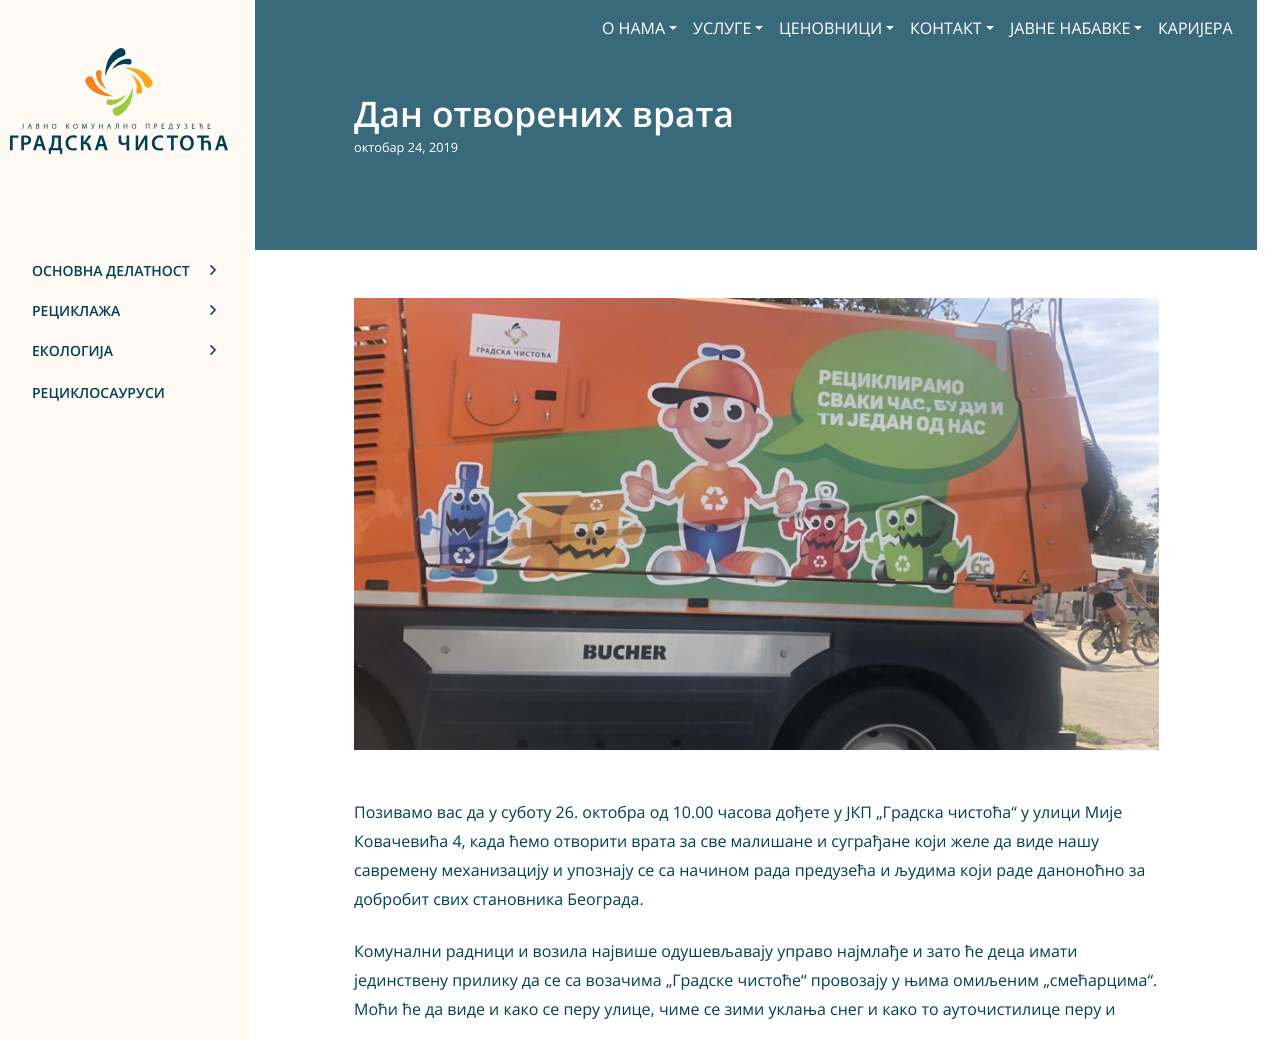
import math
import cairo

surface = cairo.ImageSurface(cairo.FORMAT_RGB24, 1272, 1039)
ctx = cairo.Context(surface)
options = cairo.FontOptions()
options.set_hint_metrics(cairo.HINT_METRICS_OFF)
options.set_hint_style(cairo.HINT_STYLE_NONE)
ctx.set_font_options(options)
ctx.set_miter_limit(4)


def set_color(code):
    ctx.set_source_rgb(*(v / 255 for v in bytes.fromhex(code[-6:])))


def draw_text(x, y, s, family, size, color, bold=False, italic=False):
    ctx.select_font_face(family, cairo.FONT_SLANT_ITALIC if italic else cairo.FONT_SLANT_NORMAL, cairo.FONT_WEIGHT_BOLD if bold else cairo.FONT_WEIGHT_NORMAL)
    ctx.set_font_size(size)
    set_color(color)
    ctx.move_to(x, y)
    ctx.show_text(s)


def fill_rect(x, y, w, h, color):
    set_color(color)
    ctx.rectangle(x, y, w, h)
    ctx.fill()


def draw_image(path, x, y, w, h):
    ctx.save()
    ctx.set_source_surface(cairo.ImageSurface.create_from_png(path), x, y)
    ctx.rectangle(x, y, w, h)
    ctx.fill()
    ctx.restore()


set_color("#ffffff")
ctx.paint()
fill_rect(255, 0, 1002, 250, "#386a7b")
draw_text(602, 34, "О НАМА", "Open Sans", 16, "#ffffff")
ctx.new_path()
ctx.move_to(669, 26)
ctx.line_to(677, 26)
ctx.line_to(673, 30)
ctx.close_path()
ctx.fill()
draw_text(693, 34, "УСЛУГЕ", "Open Sans", 16, "#ffffff")
ctx.new_path()
ctx.move_to(755, 26)
ctx.line_to(763, 26)
ctx.line_to(759, 30)
ctx.close_path()
ctx.fill()
draw_text(779, 34, "ЦЕНОВНИЦИ", "Open Sans", 16, "#ffffff")
ctx.new_path()
ctx.move_to(886, 26)
ctx.line_to(894, 26)
ctx.line_to(890, 30)
ctx.close_path()
ctx.fill()
draw_text(910, 34, "КОНТАКТ", "Open Sans", 16, "#ffffff")
ctx.new_path()
ctx.move_to(986, 26)
ctx.line_to(994, 26)
ctx.line_to(990, 30)
ctx.close_path()
ctx.fill()
draw_text(1010, 34, "ЈАВНЕ НАБАВКЕ", "Open Sans", 16, "#ffffff")
ctx.new_path()
ctx.move_to(1134, 26)
ctx.line_to(1142, 26)
ctx.line_to(1138, 30)
ctx.close_path()
ctx.fill()
draw_text(1158, 34, "КАРИЈЕРА", "Open Sans", 16, "#ffffff")
fill_rect(0, 0, 250, 1039, "#fffbf4")
draw_image("assets/img1.png", 10, 48, 218, 106)
draw_text(32, 276, "ОСНОВНА ДЕЛАТНОСТ", "Open Sans SemiBold", 14, "#003f56")
draw_image("assets/img2.png", 210, 265, 6, 10)
draw_text(32, 316, "РЕЦИКЛАЖА", "Open Sans SemiBold", 14, "#003f56")
draw_image("assets/img2.png", 210, 305, 6, 10)
draw_text(32, 356, "ЕКОЛОГИЈА", "Open Sans SemiBold", 14, "#003f56")
draw_image("assets/img2.png", 210, 345, 6, 10)
draw_text(32, 398, "РЕЦИКЛОСАУРУСИ", "Open Sans SemiBold", 14, "#003f56")
draw_text(354, 127, "Дан отворених врата", "Open Sans SemiBold", 35.25, "#ffffff")
draw_text(354, 152, "октобар 24, 2019", "Open Sans", 12.75, "#ffffff")
draw_image("assets/img3.png", 354, 298, 805, 452)
draw_text(354, 818, "Позивамо вас да у суботу 26. октобра од 10.00 часова дођете у ЈКП „Градска чистоћа“ у улици Мије", "Open Sans", 16, "#003f56")
draw_text(354, 847, "Ковачевића 4, када ћемо отворити врата за све малишане и суграђане који желе да виде нашу", "Open Sans", 16, "#003f56")
draw_text(354, 876, "савремену механизацију и упознају се са начином рада предузећа и људима који раде даноноћно за", "Open Sans", 16, "#003f56")
draw_text(354, 905, "добробит свих становника Београда.", "Open Sans", 16, "#003f56")
draw_text(354, 957, "Комунални радници и возила највише одушевљавају управо најмлађе и зато ће деца имати", "Open Sans", 16, "#003f56")
draw_text(354, 986, "јединствену прилику да се са возачима „Градске чистоће“ провозају у њима омиљеним „смећарцима“.", "Open Sans", 16, "#003f56")
draw_text(354, 1015, "Моћи ће да виде и како се перу улице, чиме се зими уклања снег и како то ауточистилице перу и", "Open Sans", 16, "#003f56")
surface.write_to_png("output.png")
